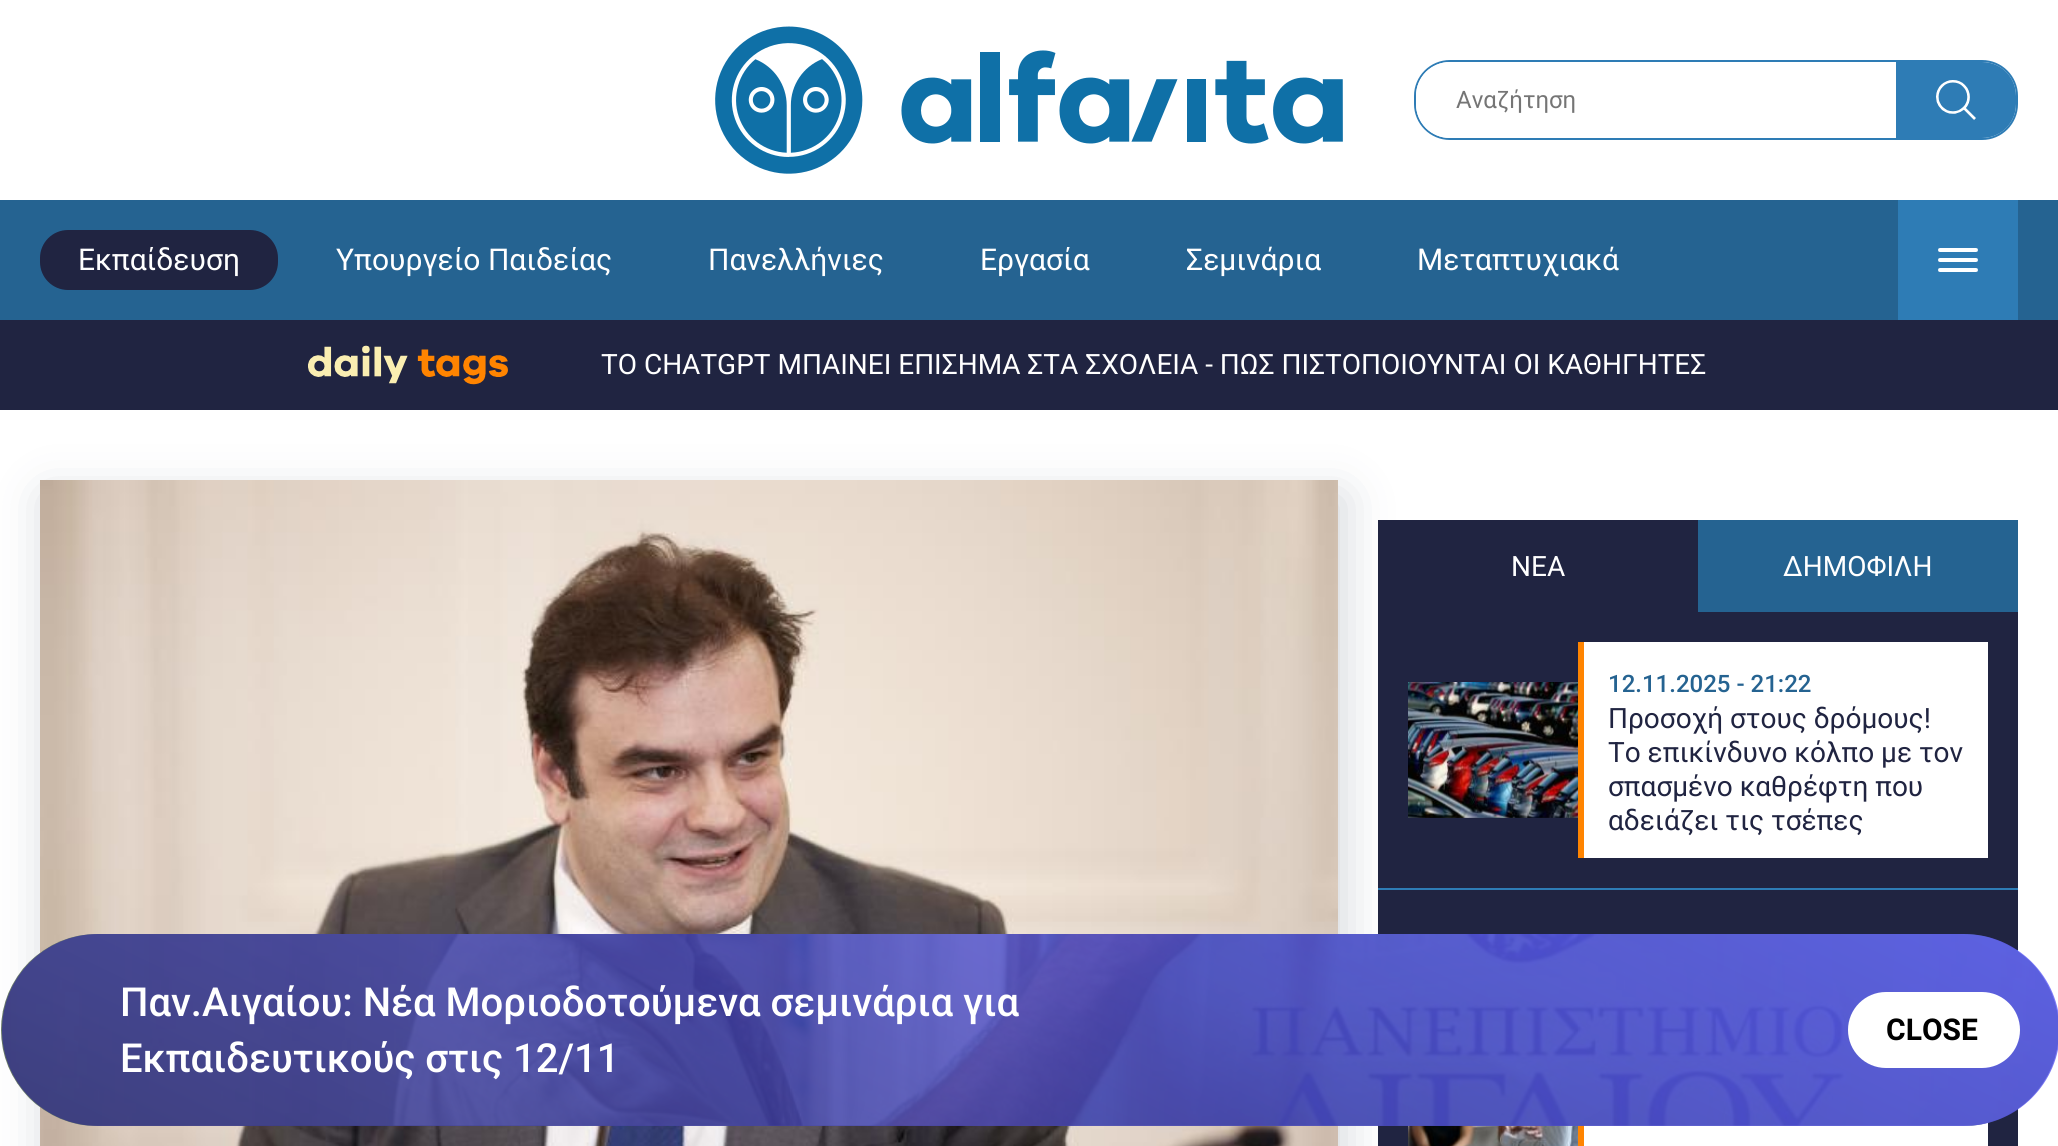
import math
import cairo

surface = cairo.ImageSurface(cairo.FORMAT_RGB24, 2058, 1146)
ctx = cairo.Context(surface)
options = cairo.FontOptions()
options.set_hint_metrics(cairo.HINT_METRICS_OFF)
options.set_hint_style(cairo.HINT_STYLE_NONE)
ctx.set_font_options(options)
ctx.set_miter_limit(4)


def set_color(code):
    ctx.set_source_rgb(*(v / 255 for v in bytes.fromhex(code[-6:])))


def draw_text(x, y, s, family, size, color, bold=False, italic=False):
    ctx.select_font_face(family, cairo.FONT_SLANT_ITALIC if italic else cairo.FONT_SLANT_NORMAL, cairo.FONT_WEIGHT_BOLD if bold else cairo.FONT_WEIGHT_NORMAL)
    ctx.set_font_size(size)
    set_color(color)
    ctx.move_to(x, y)
    ctx.show_text(s)


def fill_rect(x, y, w, h, color):
    set_color(color)
    ctx.rectangle(x, y, w, h)
    ctx.fill()


def rounded_rect(x, y, w, h, r):
    ctx.new_sub_path()
    for i, (u, v) in enumerate([(x + w - r, y + h - r), (x + r, y + h - r), (x + r, y + r), (x + w - r, y + r)]):
        ctx.arc(u, v, r, i * math.pi / 2, (i + 1) * math.pi / 2)
    ctx.close_path()


def draw_shadow(x, y, w, h, r, blur, alpha):
    ctx.push_group_with_content(cairo.CONTENT_ALPHA)
    ctx.set_operator(cairo.OPERATOR_SOURCE)
    for i in range(15, -16, -2):
        e = blur * i / 6
        if min(w, h) + 2 * e > 0:
            ctx.set_source_rgba(0, 0, 0, alpha * math.erfc((i - 1) / 8.5) / 2)
            rounded_rect(x - e, y - e, w + 2 * e, h + 2 * e, max(0, min(r + e + blur * .6, min(w, h) / 2 + e)))
            ctx.fill()
    ctx.mask(ctx.pop_group())


def draw_image(path, x, y, w, h):
    ctx.save()
    ctx.set_source_surface(cairo.ImageSurface.create_from_png(path), x, y)
    ctx.rectangle(x, y, w, h)
    ctx.fill()
    ctx.restore()


set_color("#ffffff")
ctx.paint()
draw_image("assets/img1.png", 715, 26, 628, 148)
rounded_rect(1415, 61, 602, 78, 35)
set_color("#2e7cb5")
ctx.stroke()
set_color("#ffffff")
ctx.new_path()
ctx.move_to(1450, 62)
ctx.line_to(1896, 62)
ctx.line_to(1896, 138)
ctx.line_to(1450, 138)
ctx.curve_to(1431, 138, 1416, 123, 1416, 104)
ctx.line_to(1416, 96)
ctx.curve_to(1416, 77, 1431, 62, 1450, 62)
ctx.close_path()
ctx.fill()
draw_text(1456, 108, "Αναζήτηση", "Roboto", 24, "#757575")
set_color("#2e7cb5")
ctx.new_path()
ctx.move_to(1896, 62)
ctx.line_to(1982, 62)
ctx.curve_to(2001, 62, 2016, 77, 2016, 96)
ctx.line_to(2016, 104)
ctx.curve_to(2016, 123, 2001, 138, 1982, 138)
ctx.line_to(1896, 138)
ctx.close_path()
ctx.fill()
draw_image("assets/img2.png", 1936, 80, 40, 40)
fill_rect(0, 200, 2058, 120, "#256391")
set_color("#202441")
rounded_rect(40, 230, 238, 60, 28)
ctx.fill()
draw_text(78, 270, "Εκπαίδευση", "Roboto", 30, "#ffffff")
draw_text(336, 270, "Υπουργείο Παιδείας", "Roboto", 30, "#ffffff")
draw_text(708, 270, "Πανελλήνιες", "Roboto", 30, "#ffffff")
draw_text(980, 270, "Εργασία", "Roboto", 30, "#ffffff")
draw_text(1186, 270, "Σεμινάρια", "Roboto", 30, "#ffffff")
draw_text(1417, 270, "Μεταπτυχιακά", "Roboto", 30, "#ffffff")
fill_rect(1898, 200, 120, 120, "#2e7cb5")
draw_image("assets/img3.png", 1938, 248, 40, 24)
fill_rect(0, 320, 2058, 90, "#202441")
draw_image("assets/img4.png", 308, 345, 200, 40)
draw_text(601, 374, "ΤΟ CHATGPT ΜΠΑΙΝΕΙ ΕΠΙΣΗΜΑ ΣΤΑ ΣΧΟΛΕΙΑ - ΠΩΣ ΠΙΣΤΟΠΟΙΟΥΝΤΑΙ ΟΙ ΚΑΘΗΓΗΤΕΣ", "Roboto", 28, "#ffffff")
set_color("#273650")
draw_shadow(46, 496, 1298, 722, 0, 24, 0.21)
draw_image("assets/img5.png", 40, 480, 1298, 666)
fill_rect(1378, 520, 640, 626, "#202441")
draw_text(1511, 576, "ΝΕΑ", "Roboto", 28, "#ffffff")
fill_rect(1698, 520, 320, 92, "#256391")
draw_text(1783, 576, "ΔΗΜΟΦΙΛΗ", "Roboto", 28, "#ffffff")
fill_rect(1378, 888, 640, 2, "#2e7cb5")
draw_image("assets/img6.png", 1408, 682, 170, 136)
fill_rect(1584, 642, 404, 216, "#ffffff")
fill_rect(1578, 642, 6, 216, "#ff8400")
draw_text(1608, 692, "12.11.2025 - 21:22", "Roboto Medium", 24, "#256391")
draw_text(1608, 728, "Προσοχή στους δρόμους!", "Roboto", 28, "#202441")
draw_text(1608, 762, "Το επικίνδυνο κόλπο με τον", "Roboto", 28, "#202441")
draw_text(1608, 796, "σπασμένο καθρέφτη που", "Roboto", 28, "#202441")
draw_text(1608, 830, "αδειάζει τις τσέπες", "Roboto", 28, "#202441")
fill_rect(2016, 950, 2, 2, "#2e7cb5")
draw_image("assets/img7.png", 1408, 1125, 170, 21)
fill_rect(1584, 1122, 404, 24, "#ffffff")
fill_rect(1578, 1125, 6, 21, "#ff8400")
draw_image("assets/img8.png", 1, 934, 2057, 192)
gradient = cairo.LinearGradient(1266, 547, 794, 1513)
gradient.add_color_stop_rgba(0, 0.396, 0.388, 1, 0.83)
gradient.add_color_stop_rgba(1, 0.2, 0.196, 0.502, 0.83)
ctx.set_source(gradient)
rounded_rect(2, 934, 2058, 192, 96)
ctx.fill()
draw_text(120, 1016, "Παν.Αιγαίου: Νέα Μοριοδοτούμενα σεμινάρια για", "Roboto Medium", 40, "#ffffff")
draw_text(120, 1072, "Εκπαιδευτικούς στις 12/11", "Roboto Medium", 40, "#ffffff")
rounded_rect(1848, 992, 172, 76, 38)
ctx.fill()
draw_text(1886, 1040, "CLOSE", "Roboto", 30, "#000000", bold=True)
surface.write_to_png("output.png")
